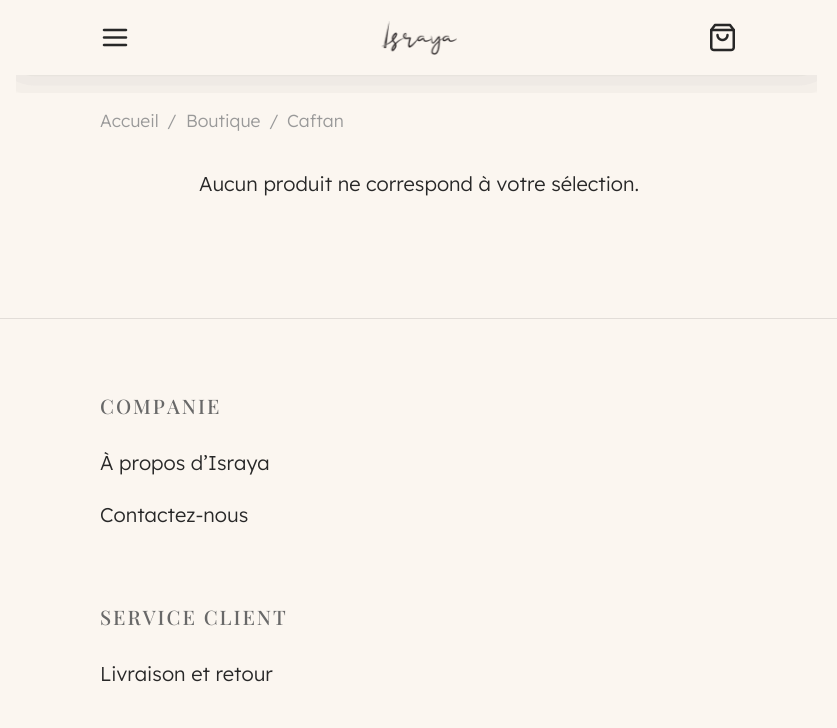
import math
import cairo

surface = cairo.ImageSurface(cairo.FORMAT_RGB24, 837, 728)
ctx = cairo.Context(surface)
options = cairo.FontOptions()
options.set_hint_metrics(cairo.HINT_METRICS_OFF)
options.set_hint_style(cairo.HINT_STYLE_NONE)
ctx.set_font_options(options)
ctx.set_miter_limit(4)


def set_color(code):
    ctx.set_source_rgb(*(v / 255 for v in bytes.fromhex(code[-6:])))


def draw_text(x, y, s, family, size, color, bold=False, italic=False):
    ctx.select_font_face(family, cairo.FONT_SLANT_ITALIC if italic else cairo.FONT_SLANT_NORMAL, cairo.FONT_WEIGHT_BOLD if bold else cairo.FONT_WEIGHT_NORMAL)
    ctx.set_font_size(size)
    set_color(color)
    ctx.move_to(x, y)
    ctx.show_text(s)


def draw_spaced(x, y, s, letter, word):
    ctx.move_to(x, y)
    for ch in s:
        ctx.show_text(ch)
        ctx.rel_move_to(letter + word * (ch == ' '), 0)


def fill_rect(x, y, w, h, color):
    set_color(color)
    ctx.rectangle(x, y, w, h)
    ctx.fill()


def rounded_rect(x, y, w, h, r):
    ctx.new_sub_path()
    for i, (u, v) in enumerate([(x + w - r, y + h - r), (x + r, y + h - r), (x + r, y + r), (x + w - r, y + r)]):
        ctx.arc(u, v, r, i * math.pi / 2, (i + 1) * math.pi / 2)
    ctx.close_path()


def draw_shadow(x, y, w, h, r, blur, alpha):
    ctx.push_group_with_content(cairo.CONTENT_ALPHA)
    ctx.set_operator(cairo.OPERATOR_SOURCE)
    for i in range(15, -16, -2):
        e = blur * i / 6
        if min(w, h) + 2 * e > 0:
            ctx.set_source_rgba(0, 0, 0, alpha * math.erfc((i - 1) / 8.5) / 2)
            rounded_rect(x - e, y - e, w + 2 * e, h + 2 * e, max(0, min(r + e + blur * .6, min(w, h) / 2 + e)))
            ctx.fill()
    ctx.mask(ctx.pop_group())


def draw_image(path, x, y, w, h):
    ctx.save()
    ctx.set_source_surface(cairo.ImageSurface.create_from_png(path), x, y)
    ctx.rectangle(x, y, w, h)
    ctx.fill()
    ctx.restore()


set_color("#fbf6f0")
ctx.paint()
ctx.save()
ctx.rectangle(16, 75, 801, 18)
ctx.clip()
set_color("#000000")
draw_shadow(23, 28, 787, 25, 0, 28, 0.3)
ctx.restore()
ctx.new_path()
ctx.move_to(104, 37.5)
ctx.line_to(126, 37.5)
ctx.move_to(104, 30)
ctx.line_to(126, 30)
ctx.move_to(104, 45)
ctx.line_to(126, 45)
set_color("#272727")
ctx.set_line_width(2.5)
ctx.set_line_cap(cairo.LINE_CAP_ROUND)
ctx.set_line_join(cairo.LINE_JOIN_ROUND)
ctx.stroke()
draw_image("assets/img1.png", 381, 21, 76, 34)
draw_image("assets/img2.png", 710, 23, 25, 29)
draw_text(100, 127, "Accueil", "Lexend Light", 17.5, "#999999")
draw_text(167, 127, "/", "Lexend Light", 17.5, "#999999")
draw_text(186, 127, "Boutique", "Lexend Light", 17.5, "#999999")
draw_text(269, 127, "/", "Lexend Light", 17.5, "#999999")
draw_text(287, 127, "Caftan", "Lexend Light", 17.5, "#999999")
draw_text(199, 191, "Aucun produit ne correspond à votre sélection.", "Lexend Light", 20, "#282828")
fill_rect(0, 318, 837, 1, "#e2ddd8")
ctx.select_font_face("Playfair Display Medium")
set_color("#686868")
draw_spaced(100, 414, "COMPANIE", 2, 0)
draw_text(100, 470, "À propos d’Israya", "Lexend Light", 20, "#282828")
draw_text(100, 522, "Contactez-nous", "Lexend Light", 20, "#282828")
ctx.select_font_face("Playfair Display Medium")
set_color("#686868")
draw_spaced(100, 625, "SERVICE CLIENT", 2, 0)
draw_text(100, 681, "Livraison et retour", "Lexend Light", 20, "#282828")
surface.write_to_png("output.png")
